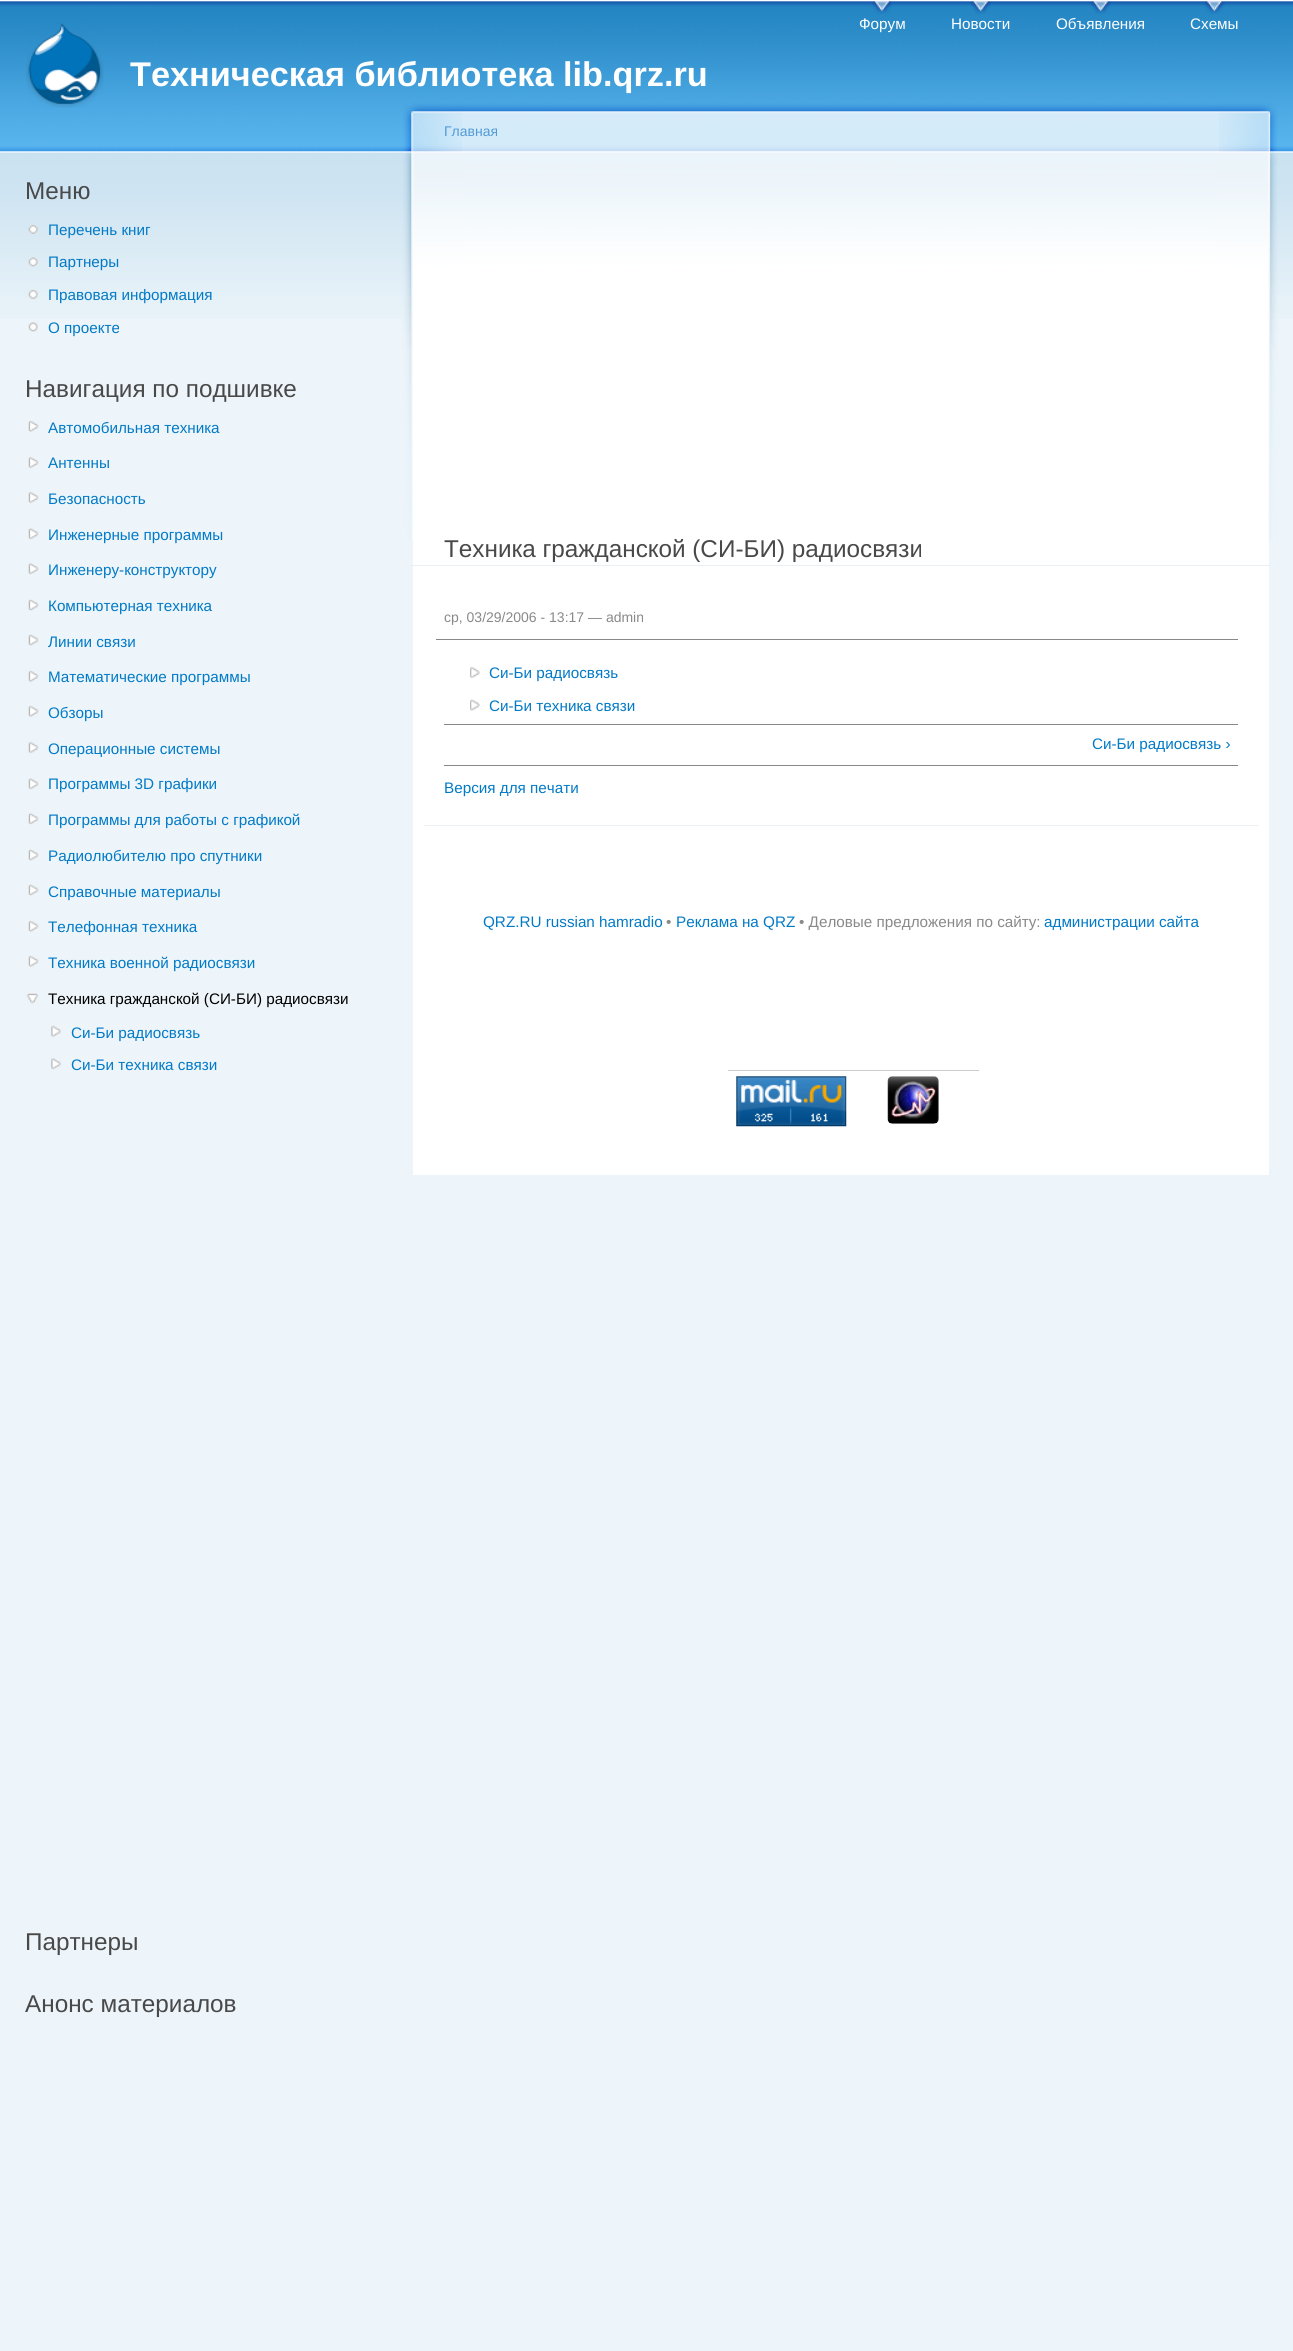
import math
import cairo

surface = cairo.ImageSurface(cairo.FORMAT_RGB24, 1293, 2351)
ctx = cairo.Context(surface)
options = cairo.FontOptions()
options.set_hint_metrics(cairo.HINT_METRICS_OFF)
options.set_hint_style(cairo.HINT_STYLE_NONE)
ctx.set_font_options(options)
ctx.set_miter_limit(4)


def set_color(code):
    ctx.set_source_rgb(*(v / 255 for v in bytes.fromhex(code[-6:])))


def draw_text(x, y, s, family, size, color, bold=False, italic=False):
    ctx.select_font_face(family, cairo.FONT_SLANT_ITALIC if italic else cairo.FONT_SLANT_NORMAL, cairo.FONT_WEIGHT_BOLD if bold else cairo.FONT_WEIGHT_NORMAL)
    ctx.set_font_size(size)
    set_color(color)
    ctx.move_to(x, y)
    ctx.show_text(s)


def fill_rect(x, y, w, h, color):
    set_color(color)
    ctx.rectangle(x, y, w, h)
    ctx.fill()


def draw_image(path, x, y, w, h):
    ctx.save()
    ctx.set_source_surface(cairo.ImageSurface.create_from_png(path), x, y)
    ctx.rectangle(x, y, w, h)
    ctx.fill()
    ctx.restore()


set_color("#edf5fa")
ctx.paint()
draw_image("assets/img1.png", 0, 0, 1293, 319)
draw_image("assets/img2.png", 871, 1, 21, 13)
draw_text(859, 29, "Форум", "Liberation Sans", 15.25, "#ffffff")
draw_image("assets/img3.png", 970, 1, 21, 13)
draw_text(951, 29, "Новости", "Liberation Sans", 15.25, "#ffffff")
draw_image("assets/img4.png", 1090, 1, 21, 13)
draw_text(1056, 29, "Объявления", "Liberation Sans", 15.25, "#ffffff")
draw_image("assets/img5.png", 1204, 1, 21, 13)
draw_text(1190, 29, "Схемы", "Liberation Sans", 15.25, "#ffffff")
draw_image("assets/img6.png", 26, 23, 78, 85)
draw_text(130, 86, "Техническая библиотека lib.qrz.ru", "Liberation Sans", 34.25, "#ffffff", bold=True)
draw_text(25, 199, "Меню", "Liberation Sans", 24.3, "#494949")
draw_image("assets/img7.png", 28, 225, 10, 9)
draw_text(48, 235, "Перечень книг", "Liberation Sans", 15.25, "#027ac6")
draw_image("assets/img8.png", 28, 257, 10, 10)
draw_text(48, 267, "Партнеры", "Liberation Sans", 15.25, "#027ac6")
draw_image("assets/img9.png", 28, 290, 10, 9)
draw_text(48, 300, "Правовая информация", "Liberation Sans", 15.25, "#027ac6")
draw_image("assets/img10.png", 28, 322, 10, 10)
draw_text(48, 333, "О проекте", "Liberation Sans", 15.25, "#027ac6")
draw_text(25, 397, "Навигация по подшивке", "Liberation Sans", 24.3, "#494949")
draw_image("assets/img11.png", 28, 420, 11, 13)
draw_text(48, 433, "Автомобильная техника", "Liberation Sans", 15.25, "#027ac6")
draw_image("assets/img12.png", 28, 456, 11, 13)
draw_text(48, 468, "Антенны", "Liberation Sans", 15.25, "#027ac6")
draw_image("assets/img12.png", 28, 491, 11, 13)
draw_text(48, 504, "Безопасность", "Liberation Sans", 15.25, "#027ac6")
draw_image("assets/img13.png", 28, 527, 11, 13)
draw_text(48, 540, "Инженерные программы", "Liberation Sans", 15.25, "#027ac6")
draw_image("assets/img13.png", 28, 562, 11, 13)
draw_text(48, 575, "Инженеру-конструктору", "Liberation Sans", 15.25, "#027ac6")
draw_image("assets/img14.png", 28, 599, 11, 12)
draw_text(48, 611, "Компьютерная техника", "Liberation Sans", 15.25, "#027ac6")
draw_image("assets/img14.png", 28, 634, 11, 12)
draw_text(48, 647, "Линии связи", "Liberation Sans", 15.25, "#027ac6")
draw_image("assets/img11.png", 28, 670, 11, 13)
draw_text(48, 682, "Математические программы", "Liberation Sans", 15.25, "#027ac6")
draw_image("assets/img11.png", 28, 705, 11, 13)
draw_text(48, 718, "Обзоры", "Liberation Sans", 15.25, "#027ac6")
draw_image("assets/img12.png", 28, 741, 11, 13)
draw_text(48, 754, "Операционные системы", "Liberation Sans", 15.25, "#027ac6")
draw_image("assets/img15.png", 28, 777, 11, 13)
draw_text(48, 789, "Программы 3D графики", "Liberation Sans", 15.25, "#027ac6")
draw_image("assets/img13.png", 28, 812, 11, 13)
draw_text(48, 825, "Программы для работы с графикой", "Liberation Sans", 15.25, "#027ac6")
draw_image("assets/img14.png", 28, 849, 11, 12)
draw_text(48, 861, "Радиолюбителю про спутники", "Liberation Sans", 15.25, "#027ac6")
draw_image("assets/img14.png", 28, 884, 11, 12)
draw_text(48, 897, "Справочные материалы", "Liberation Sans", 15.25, "#027ac6")
draw_image("assets/img11.png", 28, 920, 11, 13)
draw_text(48, 932, "Телефонная техника", "Liberation Sans", 15.25, "#027ac6")
draw_image("assets/img11.png", 28, 955, 11, 13)
draw_text(48, 968, "Техника военной радиосвязи", "Liberation Sans", 15.25, "#027ac6")
draw_image("assets/img16.png", 26, 993, 13, 11)
draw_text(48, 1004, "Техника гражданской (СИ-БИ) радиосвязи", "Liberation Sans", 15.25, "#000000")
draw_image("assets/img17.png", 51, 1025, 11, 13)
draw_text(71, 1038, "Си-Би радиосвязь", "Liberation Sans", 15.25, "#027ac6")
draw_image("assets/img18.png", 51, 1057, 11, 13)
draw_text(71, 1070, "Си-Би техника связи", "Liberation Sans", 15.25, "#027ac6")
draw_text(25, 1950, "Партнеры", "Liberation Sans", 24.3, "#494949")
draw_text(25, 2012, "Анонс материалов", "Liberation Sans", 24.3, "#494949")
fill_rect(413, 350, 856, 825, "#ffffff")
draw_image("assets/img19.png", 412, 100, 807, 250)
draw_image("assets/img20.png", 1219, 100, 59, 440)
draw_image("assets/img21.png", 402, 105, 60, 435)
draw_text(444, 136, "Главная", "Liberation Sans", 14, "#529ad6")
fill_rect(411, 565, 859, 1, "#e9eff3")
draw_text(444, 557, "Техника гражданской (СИ-БИ) радиосвязи", "Liberation Sans", 24.3, "#494949")
fill_rect(424, 825, 834, 1, "#e9eff3")
draw_text(444, 622, "ср, 03/29/2006 - 13:17 — admin", "Liberation Sans", 14, "#898989")
fill_rect(436, 639, 802, 1, "#888888")
draw_image("assets/img22.png", 470, 666, 10, 13)
draw_text(489, 678, "Си-Би радиосвязь", "Liberation Sans", 15.25, "#027ac6")
draw_image("assets/img23.png", 470, 699, 10, 12)
draw_text(489, 711, "Си-Би техника связи", "Liberation Sans", 15.25, "#027ac6")
fill_rect(444, 724, 794, 1, "#888888")
fill_rect(444, 765, 794, 1, "#888888")
draw_text(1092, 749, "Си-Би радиосвязь ›", "Liberation Sans", 15.25, "#027ac6")
draw_text(444, 793, "Версия для печати", "Liberation Sans", 15.25, "#027ac6")
draw_text(483, 927, "QRZ.RU russian hamradio", "Liberation Sans", 15.25, "#027ac6")
draw_text(666, 927, "•", "Liberation Sans", 15.25, "#898989")
draw_text(676, 927, "Реклама на QRZ", "Liberation Sans", 15.25, "#027ac6")
draw_text(799, 927, "• Деловые предложения по сайту:", "Liberation Sans", 15.25, "#898989")
draw_text(1044, 927, "администрации сайта", "Liberation Sans", 15.25, "#027ac6")
fill_rect(728, 1070, 251, 1, "#cccccc")
draw_image("assets/img24.png", 736, 1076, 111, 51)
draw_image("assets/img25.png", 887, 1076, 52, 48)
surface.write_to_png("output.png")
